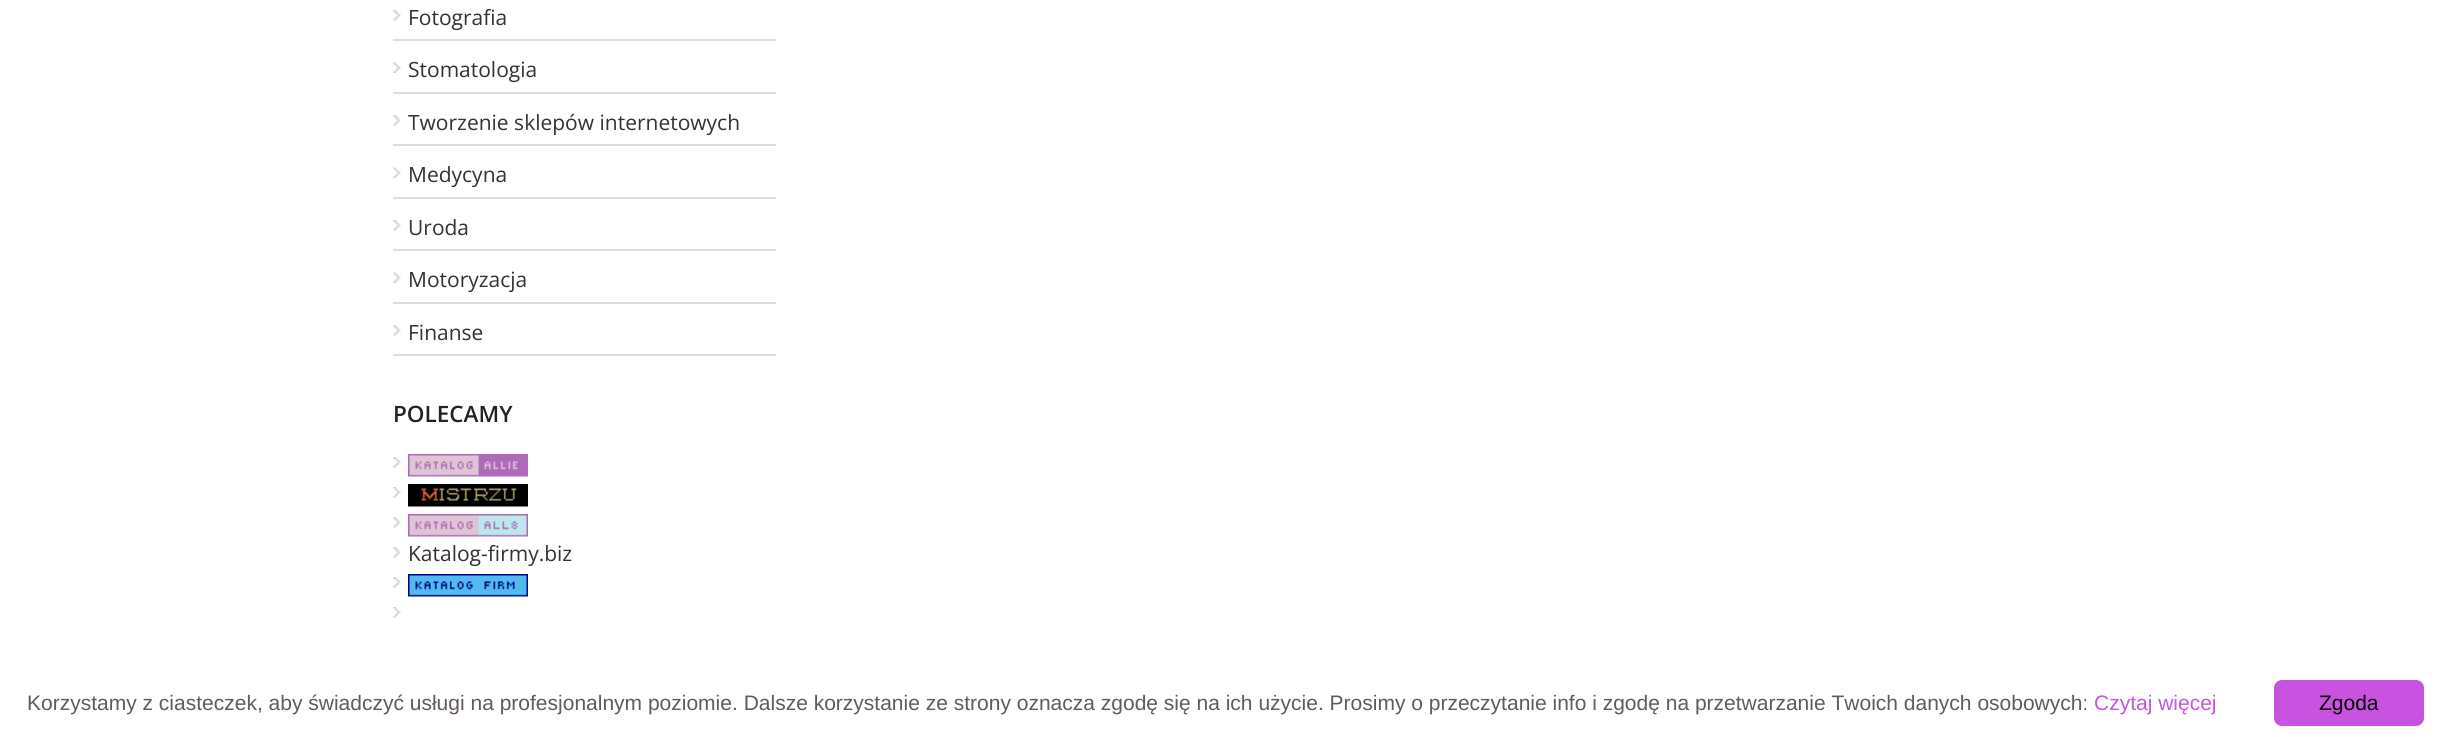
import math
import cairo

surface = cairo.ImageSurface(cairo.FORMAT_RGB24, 2451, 737)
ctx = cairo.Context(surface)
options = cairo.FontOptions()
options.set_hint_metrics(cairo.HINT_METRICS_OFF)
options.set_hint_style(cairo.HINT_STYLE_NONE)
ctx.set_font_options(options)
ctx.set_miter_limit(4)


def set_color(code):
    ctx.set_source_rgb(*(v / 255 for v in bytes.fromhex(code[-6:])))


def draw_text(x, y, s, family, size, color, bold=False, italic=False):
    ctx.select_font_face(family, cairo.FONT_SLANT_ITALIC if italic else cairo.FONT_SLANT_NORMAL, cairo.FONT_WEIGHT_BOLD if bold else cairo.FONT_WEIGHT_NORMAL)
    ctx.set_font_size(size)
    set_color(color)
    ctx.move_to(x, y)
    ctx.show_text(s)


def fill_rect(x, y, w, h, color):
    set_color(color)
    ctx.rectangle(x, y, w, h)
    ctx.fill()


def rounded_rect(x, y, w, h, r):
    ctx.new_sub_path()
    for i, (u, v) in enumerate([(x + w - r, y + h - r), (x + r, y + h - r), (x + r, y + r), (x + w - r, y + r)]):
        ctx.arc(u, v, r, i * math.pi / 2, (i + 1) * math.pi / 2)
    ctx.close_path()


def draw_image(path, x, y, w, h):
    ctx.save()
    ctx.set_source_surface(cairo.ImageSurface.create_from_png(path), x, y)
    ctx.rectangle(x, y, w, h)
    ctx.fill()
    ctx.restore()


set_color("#ffffff")
ctx.paint()
fill_rect(393, 39, 383, 2, "#dddddd")
draw_image("assets/img1.png", 393, 10, 8, 11)
draw_text(408, 25, "Fotografia", "Open Sans", 21, "#333333")
fill_rect(393, 92, 383, 2, "#dddddd")
draw_image("assets/img2.png", 393, 62, 8, 11)
draw_text(408, 77, "Stomatologia", "Open Sans", 21, "#333333")
fill_rect(393, 144, 383, 2, "#dddddd")
draw_image("assets/img1.png", 393, 115, 8, 11)
draw_text(408, 130, "Tworzenie sklepów internetowych", "Open Sans", 21, "#333333")
fill_rect(393, 197, 383, 2, "#dddddd")
draw_image("assets/img2.png", 393, 167, 8, 11)
draw_text(408, 182, "Medycyna", "Open Sans", 21, "#333333")
fill_rect(393, 249, 383, 2, "#dddddd")
draw_image("assets/img1.png", 393, 220, 8, 11)
draw_text(408, 235, "Uroda", "Open Sans", 21, "#333333")
fill_rect(393, 302, 383, 2, "#dddddd")
draw_image("assets/img2.png", 393, 272, 8, 11)
draw_text(408, 287, "Motoryzacja", "Open Sans", 21, "#333333")
fill_rect(393, 354, 383, 2, "#dddddd")
draw_image("assets/img1.png", 393, 325, 8, 11)
draw_text(408, 340, "Finanse", "Open Sans", 21, "#333333")
draw_text(393, 422, "POLECAMY", "Open Sans SemiBold", 22.5, "#222222")
draw_image("assets/img1.png", 393, 457, 8, 11)
draw_image("assets/img3.png", 408, 454, 120, 23)
draw_image("assets/img1.png", 393, 487, 8, 11)
draw_image("assets/img4.png", 408, 484, 120, 23)
draw_image("assets/img1.png", 393, 517, 8, 11)
draw_image("assets/img5.png", 408, 514, 120, 23)
draw_image("assets/img1.png", 393, 547, 8, 11)
draw_text(408, 561, "Katalog-firmy.biz", "Open Sans", 21, "#333333")
draw_image("assets/img1.png", 393, 577, 8, 11)
draw_image("assets/img6.png", 408, 574, 120, 23)
draw_image("assets/img1.png", 393, 607, 8, 11)
draw_text(27, 710, "Korzystamy z ciasteczek, aby świadczyć usługi na profesjonalnym poziomie. Dalsze korzystanie ze strony oznacza zgodę się na ich użycie. Prosimy o przeczytanie info i zgodę na przetwarzanie Twoich danych osobowych:", "Liberation Sans", 21, "#645862")
draw_text(2094, 710, "Czytaj więcej", "Liberation Sans", 21, "#c953e0")
rounded_rect(2274, 680, 150, 46, 8)
ctx.fill()
draw_text(2319, 710, "Zgoda", "Liberation Sans", 21, "#000000")
surface.write_to_png("output.png")
